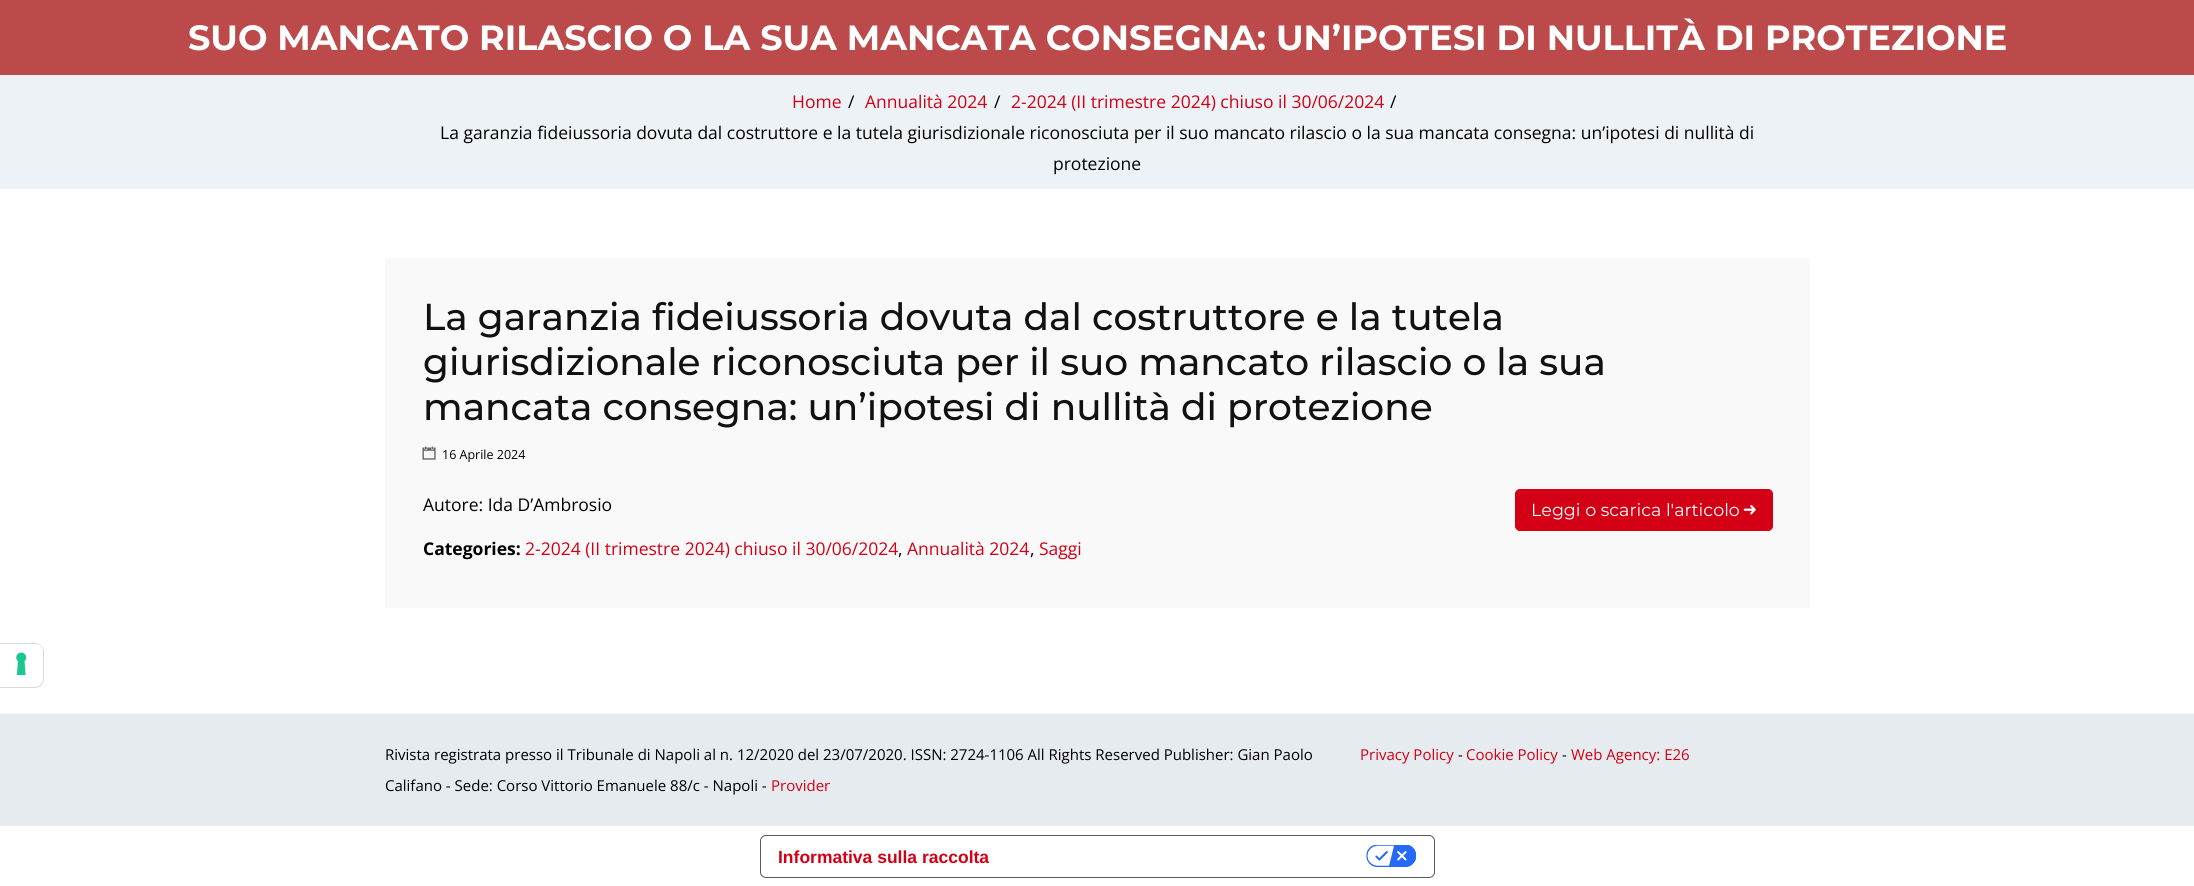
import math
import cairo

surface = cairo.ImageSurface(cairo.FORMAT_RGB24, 2194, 886)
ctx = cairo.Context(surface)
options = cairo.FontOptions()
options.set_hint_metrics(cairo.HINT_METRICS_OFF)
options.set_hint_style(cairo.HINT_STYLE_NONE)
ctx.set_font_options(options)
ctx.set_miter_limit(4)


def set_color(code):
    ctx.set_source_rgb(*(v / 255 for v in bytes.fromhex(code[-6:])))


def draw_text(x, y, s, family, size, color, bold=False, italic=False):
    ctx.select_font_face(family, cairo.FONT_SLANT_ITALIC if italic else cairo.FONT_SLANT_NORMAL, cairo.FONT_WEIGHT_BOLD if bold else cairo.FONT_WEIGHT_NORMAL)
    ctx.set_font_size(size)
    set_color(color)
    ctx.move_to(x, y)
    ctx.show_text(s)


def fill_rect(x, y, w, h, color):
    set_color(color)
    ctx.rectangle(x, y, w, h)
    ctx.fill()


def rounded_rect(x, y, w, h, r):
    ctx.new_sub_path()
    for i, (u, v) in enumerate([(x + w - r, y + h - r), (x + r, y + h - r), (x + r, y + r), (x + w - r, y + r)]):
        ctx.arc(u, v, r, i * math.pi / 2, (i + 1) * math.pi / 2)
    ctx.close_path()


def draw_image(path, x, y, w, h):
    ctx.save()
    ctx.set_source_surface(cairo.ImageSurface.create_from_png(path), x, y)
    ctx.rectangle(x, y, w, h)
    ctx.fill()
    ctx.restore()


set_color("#ffffff")
ctx.paint()
ctx.new_path()
ctx.move_to(-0.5, 643.5)
ctx.line_to(35, 643.5)
ctx.curve_to(39.5, 643.5, 43.5, 647.5, 43.5, 652)
ctx.line_to(43.5, 679)
ctx.curve_to(43.5, 683.5, 39.5, 687.5, 35, 687.5)
ctx.line_to(-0.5, 687.5)
ctx.close_path()
set_color("#d9d9d9")
ctx.set_line_width(1)
ctx.stroke()
set_color("#ffffff")
ctx.new_path()
ctx.move_to(0, 644)
ctx.line_to(35, 644)
ctx.curve_to(39.5, 644, 43, 647.5, 43, 652)
ctx.line_to(43, 678)
ctx.curve_to(43, 682.5, 39.5, 686, 35, 686)
ctx.line_to(0, 686)
ctx.close_path()
ctx.fill()
draw_image("assets/img1.png", 16, 652, 11, 23)
fill_rect(0, 0, 2194, 75, "#bd4a4a")
draw_text(188, 50, "SUO MANCATO RILASCIO O LA SUA MANCATA CONSEGNA: UN’IPOTESI DI NULLITÀ DI PROTEZIONE", "Montserrat", 35, "#ffffff", bold=True)
fill_rect(0, 75, 2194, 114, "#edf2f6")
draw_text(792, 108, "Home", "Open Sans", 17.5, "#d30015")
draw_text(848, 108, "/", "Open Sans", 17.5, "#000000")
draw_text(865, 108, "Annualità 2024", "Open Sans", 17.5, "#d30015")
draw_text(994, 108, "/", "Open Sans", 17.5, "#000000")
draw_text(1011, 108, "2-2024 (II trimestre 2024) chiuso il 30/06/2024", "Open Sans", 17.5, "#d30015")
draw_text(1390, 108, "/", "Open Sans", 17.5, "#000000")
draw_text(440, 139, "La garanzia fideiussoria dovuta dal costruttore e la tutela giurisdizionale riconosciuta per il suo mancato rilascio o la sua mancata consegna: un’ipotesi di nullità di", "Open Sans", 17.5, "#000000")
draw_text(1053, 170, "protezione", "Open Sans", 17.5, "#000000")
fill_rect(385, 258, 1425, 350, "#f9f9f9")
draw_text(423, 330, "La garanzia fideiussoria dovuta dal costruttore e la tutela", "Montserrat Medium", 37.5, "#111111")
draw_text(423, 375, "giurisdizionale riconosciuta per il suo mancato rilascio o la sua", "Montserrat Medium", 37.5, "#111111")
draw_text(423, 420, "mancata consegna: un’ipotesi di nullità di protezione", "Montserrat Medium", 37.5, "#111111")
draw_image("assets/img2.png", 422, 446, 14, 14)
draw_text(442, 459, "16 Aprile 2024", "Open Sans", 12.5, "#000000")
draw_text(423, 511, "Autore: Ida D’Ambrosio", "Open Sans", 17.5, "#000000")
set_color("#d30015")
rounded_rect(1515.5, 489.5, 257, 41, 4.5)
ctx.fill_preserve()
ctx.stroke()
draw_text(1531, 516, "Leggi o scarica l'articolo", "Montserrat", 17.5, "#ffffff")
draw_image("assets/img3.png", 1743, 505, 13, 10)
draw_text(423, 555, "Categories:", "Open Sans", 17.5, "#000000", bold=True)
draw_text(525, 555, "2-2024 (II trimestre 2024) chiuso il 30/06/2024", "Open Sans", 17.5, "#d30015")
draw_text(898, 555, ",", "Open Sans", 17.5, "#000000")
draw_text(907, 555, "Annualità 2024", "Open Sans", 17.5, "#d30015")
draw_text(1030, 555, ",", "Open Sans", 17.5, "#000000")
draw_text(1039, 555, "Saggi", "Open Sans", 17.5, "#d30015")
draw_image("assets/img4.png", 0, 713, 2194, 1)
fill_rect(0, 714, 2194, 112, "#e6ebef")
draw_text(385, 760, "Rivista registrata presso il Tribunale di Napoli al n. 12/2020 del 23/07/2020. ISSN: 2724-1106 All Rights Reserved Publisher: Gian Paolo", "Open Sans", 15, "#000000")
draw_text(385, 791, "Califano - Sede: Corso Vittorio Emanuele 88/c - Napoli -", "Open Sans", 15, "#000000")
draw_text(771, 791, "Provider", "Open Sans", 15, "#d30015")
draw_text(1360, 760, "Privacy Policy", "Open Sans", 15, "#d30015")
draw_text(1458, 760, "-", "Open Sans", 15, "#000000")
draw_text(1466, 760, "Cookie Policy", "Open Sans", 15, "#d30015")
draw_text(1562, 760, "-", "Open Sans", 15, "#000000")
draw_text(1571, 760, "Web Agency: E26", "Open Sans", 15, "#d30015")
rounded_rect(760.5, 835.5, 674, 42, 5.5)
set_color("#595959")
ctx.stroke()
draw_text(778, 863, "Informativa sulla raccolta", "Liberation Sans", 17.5, "#d30015", bold=True)
draw_image("assets/img5.png", 1366, 845, 50, 22)
surface.write_to_png("output.png")
